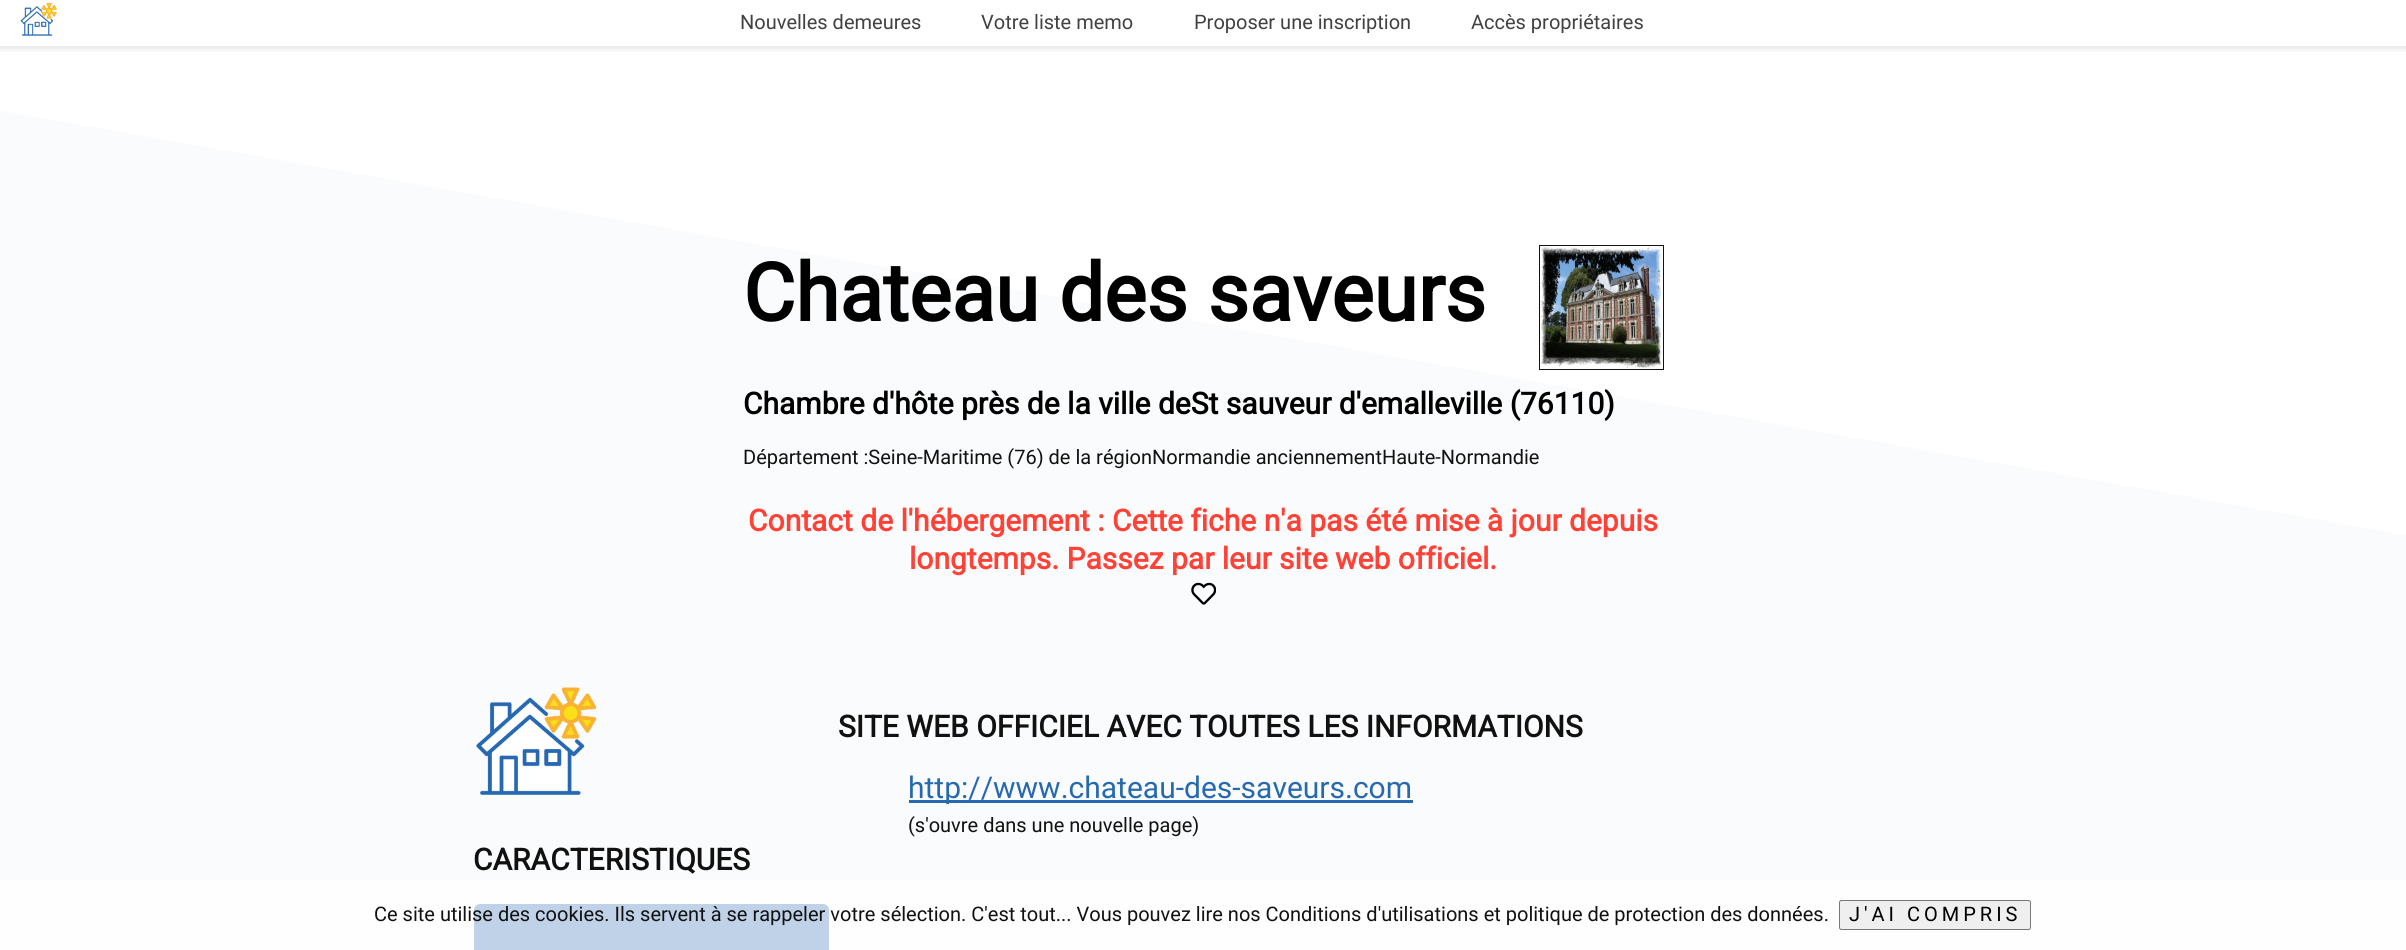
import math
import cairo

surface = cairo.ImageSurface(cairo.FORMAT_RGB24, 2406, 950)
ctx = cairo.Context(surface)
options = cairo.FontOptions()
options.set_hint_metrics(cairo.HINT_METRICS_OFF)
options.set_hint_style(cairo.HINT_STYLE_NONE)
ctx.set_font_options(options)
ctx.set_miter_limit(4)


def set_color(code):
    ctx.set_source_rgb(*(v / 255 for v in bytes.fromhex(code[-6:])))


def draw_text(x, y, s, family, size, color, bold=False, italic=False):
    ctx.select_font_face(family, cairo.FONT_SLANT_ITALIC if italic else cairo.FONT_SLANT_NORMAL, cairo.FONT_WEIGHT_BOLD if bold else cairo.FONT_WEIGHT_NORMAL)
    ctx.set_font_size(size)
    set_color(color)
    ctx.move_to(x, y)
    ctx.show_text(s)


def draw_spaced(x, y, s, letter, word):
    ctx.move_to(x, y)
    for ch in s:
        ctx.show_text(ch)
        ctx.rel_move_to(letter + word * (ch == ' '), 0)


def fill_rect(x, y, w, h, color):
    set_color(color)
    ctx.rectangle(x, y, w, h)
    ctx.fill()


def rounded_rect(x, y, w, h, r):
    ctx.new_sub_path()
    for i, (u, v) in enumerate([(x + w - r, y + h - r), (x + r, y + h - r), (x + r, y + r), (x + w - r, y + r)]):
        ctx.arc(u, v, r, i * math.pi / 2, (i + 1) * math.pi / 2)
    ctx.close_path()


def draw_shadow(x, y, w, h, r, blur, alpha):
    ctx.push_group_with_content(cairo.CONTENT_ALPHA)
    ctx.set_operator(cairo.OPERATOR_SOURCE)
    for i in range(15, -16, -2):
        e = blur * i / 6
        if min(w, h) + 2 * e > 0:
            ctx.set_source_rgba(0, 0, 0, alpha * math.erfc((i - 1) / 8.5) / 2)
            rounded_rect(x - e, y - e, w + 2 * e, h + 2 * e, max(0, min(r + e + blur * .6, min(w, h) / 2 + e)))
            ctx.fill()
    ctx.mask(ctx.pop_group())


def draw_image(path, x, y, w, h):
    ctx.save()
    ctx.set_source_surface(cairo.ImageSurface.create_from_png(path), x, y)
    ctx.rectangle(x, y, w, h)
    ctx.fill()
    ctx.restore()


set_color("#ffffff")
ctx.paint()
ctx.save()
ctx.rectangle(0, 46, 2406, 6)
ctx.clip()
set_color("#000000")
draw_shadow(-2, -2, 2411, 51, 0, 3, 0.1)
ctx.restore()
draw_image("assets/img1.png", 20, 3, 37, 33)
draw_text(740, 29, "Nouvelles demeures", "Roboto", 20, "#414141")
draw_text(981, 29, "Votre liste memo", "Roboto", 20, "#414141")
draw_text(1194, 29, "Proposer une inscription", "Roboto", 20, "#414141")
draw_text(1471, 29, "Accès propriétaires", "Roboto", 20, "#414141")
set_color("#fafbfc")
ctx.new_path()
ctx.move_to(-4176, -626)
ctx.line_to(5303, 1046)
ctx.line_to(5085, 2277)
ctx.line_to(-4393, 605)
ctx.close_path()
ctx.fill()
draw_text(743, 321, "Chateau des saveurs", "Roboto", 80, "#000000", bold=True)
ctx.rectangle(1539.5, 245.5, 124, 124)
set_color("#111111")
ctx.set_line_width(1)
ctx.stroke()
draw_image("assets/img2.png", 1540, 246, 122, 123)
draw_text(743, 414, "Chambre d'hôte près de la ville deSt sauveur d'emalleville (76110)", "Roboto", 30, "#000000", bold=True)
draw_text(743, 464, "Département :Seine-Maritime (76) de la régionNormandie anciennementHaute-Normandie", "Roboto", 20, "#111111")
draw_text(748, 531, "Contact de l'hébergement : Cette fiche n'a pas été mise à jour depuis", "Roboto", 30, "#ff4136", bold=True)
draw_text(909, 569, "longtemps. Passez par leur site web officiel.", "Roboto", 30, "#ff4136", bold=True)
draw_image("assets/img3.png", 1191, 582, 25, 23)
draw_text(838, 737, "SITE WEB OFFICIEL AVEC TOUTES LES INFORMATIONS", "Roboto", 30, "#111111", bold=True)
fill_rect(909, 800, 504, 3, "#2769b1")
draw_text(908, 798, "http://www.chateau-des-saveurs.com", "Roboto", 30, "#2769b1")
draw_text(908, 832, "(s'ouvre dans une nouvelle page)", "Roboto", 20, "#111111")
draw_image("assets/img4.png", 476, 687, 121, 108)
draw_text(473, 870, "CARACTERISTIQUES", "Roboto", 30, "#111111", bold=True)
set_color("#2769b1")
rounded_rect(474, 904, 355, 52, 6)
ctx.fill()
ctx.set_source_rgba(1, 1, 1, 0.7)
ctx.rectangle(0, 880, 2406, 70)
ctx.fill()
draw_text(374, 921, "Ce site utilise des cookies. Ils servent à se rappeler votre sélection. C'est tout... Vous pouvez lire nos Conditions d'utilisations et politique de protection des données.", "Roboto", 20, "#111111")
set_color("#efefef")
rounded_rect(1839.5, 900.5, 191, 29, 2)
ctx.fill_preserve()
set_color("#767676")
ctx.stroke()
set_color("#000000")
draw_spaced(1849, 921, "J'AI COMPRIS", 4, 0)
surface.write_to_png("output.png")
